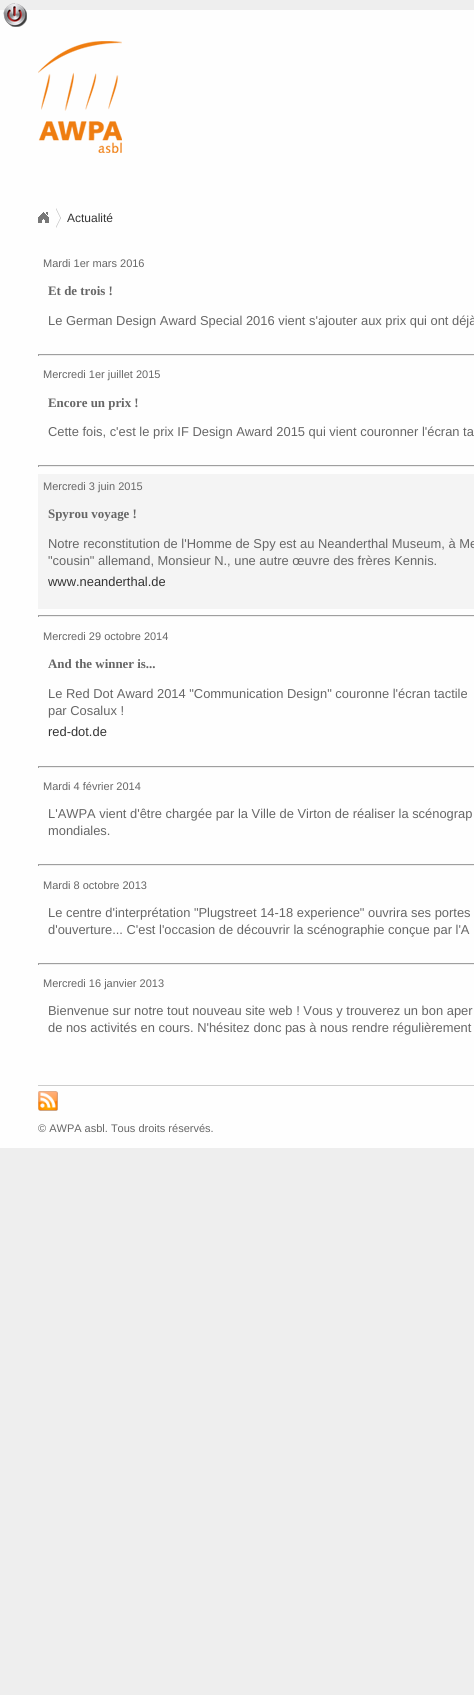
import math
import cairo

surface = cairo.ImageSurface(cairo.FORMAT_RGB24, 474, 1695)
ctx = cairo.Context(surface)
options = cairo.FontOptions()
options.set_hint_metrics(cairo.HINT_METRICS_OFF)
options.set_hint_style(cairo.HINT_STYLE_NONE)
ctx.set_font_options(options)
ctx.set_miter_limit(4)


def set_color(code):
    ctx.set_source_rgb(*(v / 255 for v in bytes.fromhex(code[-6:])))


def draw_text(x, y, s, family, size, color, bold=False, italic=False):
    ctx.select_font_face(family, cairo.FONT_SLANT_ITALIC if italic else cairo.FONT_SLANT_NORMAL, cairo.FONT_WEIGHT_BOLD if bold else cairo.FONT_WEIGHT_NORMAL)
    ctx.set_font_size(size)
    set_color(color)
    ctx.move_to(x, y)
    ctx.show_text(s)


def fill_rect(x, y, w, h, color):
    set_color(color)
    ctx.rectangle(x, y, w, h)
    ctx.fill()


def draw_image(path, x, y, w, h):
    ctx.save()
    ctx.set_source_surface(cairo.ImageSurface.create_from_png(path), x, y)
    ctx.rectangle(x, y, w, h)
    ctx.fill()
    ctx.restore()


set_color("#eeeeee")
ctx.paint()
fill_rect(0, 10, 474, 1138, "#fefefe")
draw_image("assets/img1.png", 3, 3, 24, 24)
draw_image("assets/img2.png", 38, 41, 84, 112)
draw_image("assets/img3.png", 56, 208, 5, 20)
draw_image("assets/img4.png", 38, 212, 11, 11)
draw_text(67, 222, "Actualité", "Liberation Sans", 12, "#333333")
draw_text(43, 267, "Mardi 1er mars 2016", "Liberation Sans", 11, "#666666")
draw_text(48, 295, "Et de trois !", "Liberation Serif", 12.9, "#666666", bold=True)
draw_text(48, 325, "Le German Design Award Special 2016 vient s'ajouter aux prix qui ont déjà", "Liberation Sans", 12.9, "#666666")
fill_rect(38, 354, 436, 1, "#9f9f9f")
fill_rect(38, 355, 436, 1, "#eeeeee")
fill_rect(38, 354, 1, 2, "#9f9f9f")
draw_text(43, 378, "Mercredi 1er juillet 2015", "Liberation Sans", 11, "#666666")
draw_text(48, 407, "Encore un prix !", "Liberation Serif", 12.9, "#666666", bold=True)
draw_text(48, 436, "Cette fois, c'est le prix IF Design Award 2015 qui vient couronner l'écran ta", "Liberation Sans", 12.9, "#666666")
fill_rect(38, 465, 436, 1, "#9f9f9f")
fill_rect(38, 466, 436, 1, "#eeeeee")
fill_rect(38, 465, 1, 2, "#9f9f9f")
fill_rect(38, 474, 436, 135, "#f4f4f4")
draw_text(43, 490, "Mercredi 3 juin 2015", "Liberation Sans", 11, "#666666")
draw_text(48, 518, "Spyrou voyage !", "Liberation Serif", 12.9, "#666666", bold=True)
draw_text(48, 548, "Notre reconstitution de l'Homme de Spy est au Neanderthal Museum, à Me", "Liberation Sans", 12.9, "#666666")
draw_text(48, 565, "\"cousin\" allemand, Monsieur N., une autre œuvre des frères Kennis.", "Liberation Sans", 12.9, "#666666")
draw_text(48, 586, "www.neanderthal.de", "Liberation Sans", 12.9, "#333333")
fill_rect(38, 615, 436, 1, "#9f9f9f")
fill_rect(38, 616, 436, 1, "#eeeeee")
fill_rect(38, 615, 1, 2, "#9f9f9f")
draw_text(43, 640, "Mercredi 29 octobre 2014", "Liberation Sans", 11, "#666666")
draw_text(48, 668, "And the winner is...", "Liberation Serif", 12.9, "#666666", bold=True)
draw_text(48, 698, "Le Red Dot Award 2014 \"Communication Design\" couronne l'écran tactile", "Liberation Sans", 12.9, "#666666")
draw_text(48, 715, "par Cosalux !", "Liberation Sans", 12.9, "#666666")
draw_text(48, 736, "red-dot.de", "Liberation Sans", 12.9, "#333333")
fill_rect(38, 766, 436, 1, "#9f9f9f")
fill_rect(38, 767, 436, 1, "#eeeeee")
fill_rect(38, 766, 1, 2, "#9f9f9f")
draw_text(43, 790, "Mardi 4 février 2014", "Liberation Sans", 11, "#666666")
draw_text(48, 818, "L'AWPA vient d'être chargée par la Ville de Virton de réaliser la scénograp", "Liberation Sans", 12.9, "#666666")
draw_text(48, 835, "mondiales.", "Liberation Sans", 12.9, "#666666")
fill_rect(38, 864, 436, 1, "#9f9f9f")
fill_rect(38, 865, 436, 1, "#eeeeee")
fill_rect(38, 864, 1, 2, "#9f9f9f")
draw_text(43, 889, "Mardi 8 octobre 2013", "Liberation Sans", 11, "#666666")
draw_text(48, 917, "Le centre d'interprétation \"Plugstreet 14-18 experience\" ouvrira ses portes", "Liberation Sans", 12.9, "#666666")
draw_text(48, 934, "d'ouverture... C'est l'occasion de découvrir la scénographie conçue par l'A", "Liberation Sans", 12.9, "#666666")
fill_rect(38, 963, 436, 1, "#9f9f9f")
fill_rect(38, 964, 436, 1, "#eeeeee")
fill_rect(38, 963, 1, 2, "#9f9f9f")
draw_text(43, 987, "Mercredi 16 janvier 2013", "Liberation Sans", 11, "#666666")
draw_text(48, 1015, "Bienvenue sur notre tout nouveau site web ! Vous y trouverez un bon aper", "Liberation Sans", 12.9, "#666666")
draw_text(48, 1032, "de nos activités en cours. N'hésitez donc pas à nous rendre régulièrement", "Liberation Sans", 12.9, "#666666")
fill_rect(38, 1085, 436, 1, "#cccccc")
draw_image("assets/img5.png", 38, 1091, 20, 20)
draw_text(38, 1132, "© AWPA asbl. Tous droits réservés.", "Liberation Sans", 11, "#666666")
surface.write_to_png("output.png")
